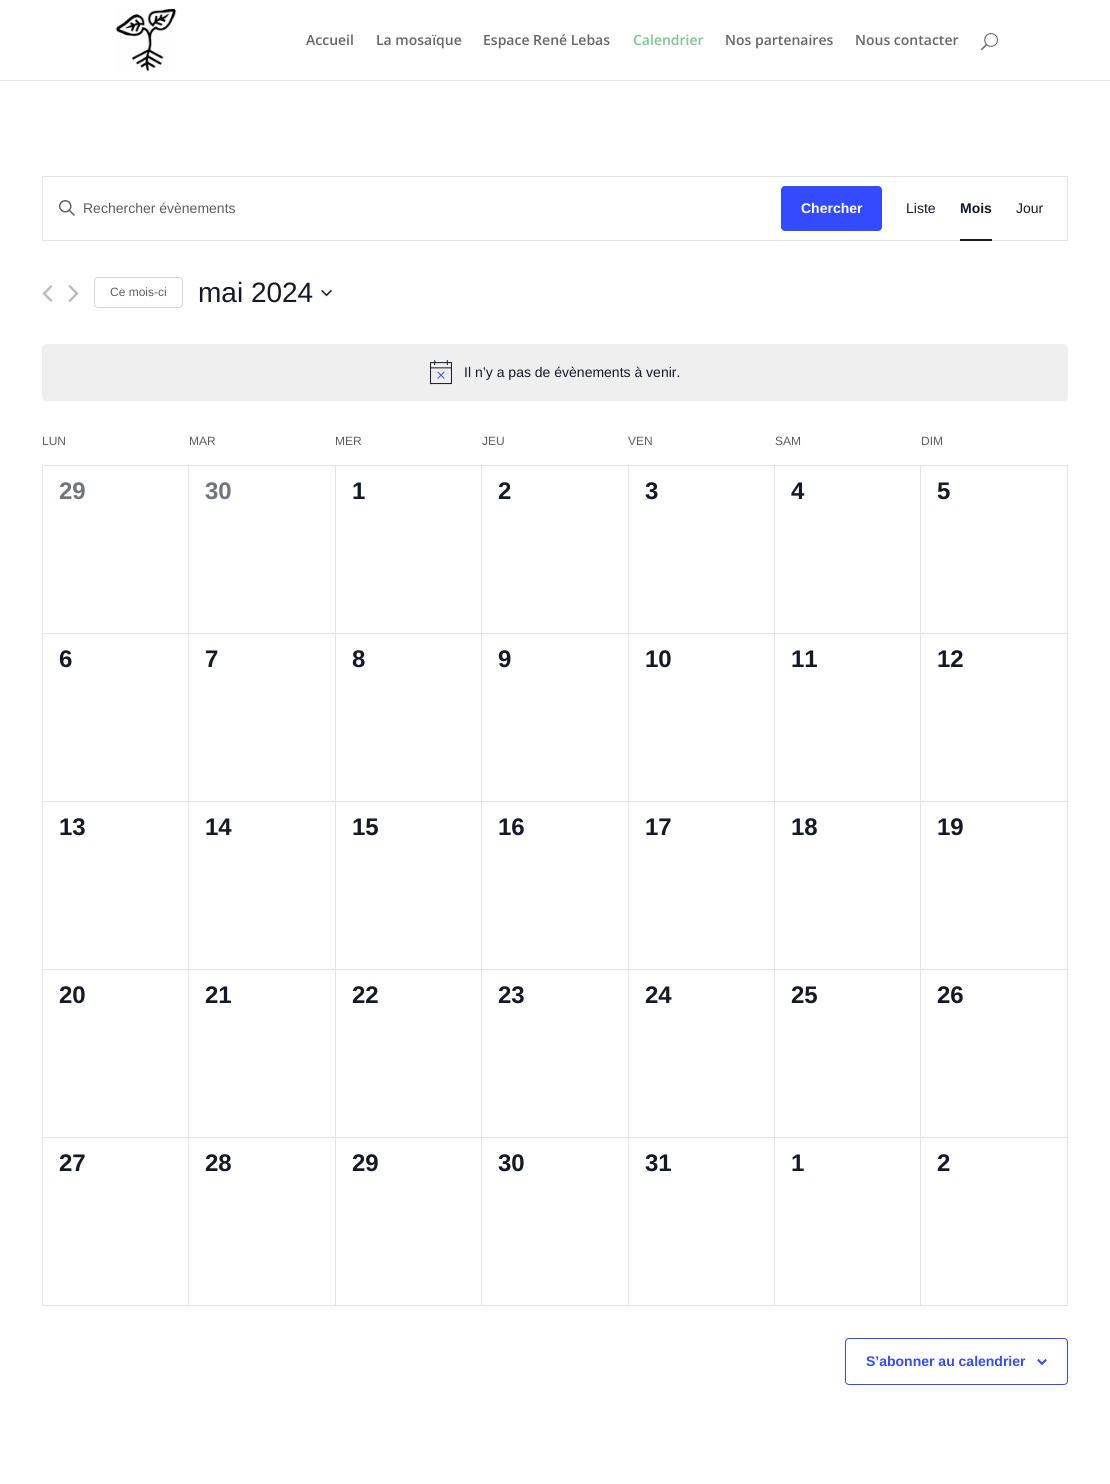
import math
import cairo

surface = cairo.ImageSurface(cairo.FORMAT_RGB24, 1110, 1484)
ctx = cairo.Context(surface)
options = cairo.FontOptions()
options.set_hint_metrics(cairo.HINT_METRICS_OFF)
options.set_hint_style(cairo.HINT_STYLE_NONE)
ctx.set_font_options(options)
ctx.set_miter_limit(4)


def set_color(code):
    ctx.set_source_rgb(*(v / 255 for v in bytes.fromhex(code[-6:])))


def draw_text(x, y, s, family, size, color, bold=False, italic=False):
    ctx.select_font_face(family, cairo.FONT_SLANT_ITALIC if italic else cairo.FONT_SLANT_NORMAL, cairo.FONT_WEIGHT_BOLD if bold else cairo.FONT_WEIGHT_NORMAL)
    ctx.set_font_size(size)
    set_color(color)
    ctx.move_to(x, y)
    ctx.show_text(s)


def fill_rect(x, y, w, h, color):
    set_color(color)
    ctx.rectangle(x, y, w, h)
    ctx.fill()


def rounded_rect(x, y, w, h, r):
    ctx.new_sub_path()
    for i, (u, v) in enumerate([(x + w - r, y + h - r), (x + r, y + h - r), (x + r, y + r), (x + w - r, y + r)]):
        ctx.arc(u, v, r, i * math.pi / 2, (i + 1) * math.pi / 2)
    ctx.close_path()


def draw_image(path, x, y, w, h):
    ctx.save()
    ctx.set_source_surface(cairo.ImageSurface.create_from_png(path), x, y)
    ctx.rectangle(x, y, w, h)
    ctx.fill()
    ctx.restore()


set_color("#ffffff")
ctx.paint()
fill_rect(0, 80, 1110, 1, "#e6e6e6")
draw_image("assets/img1.png", 115, 9, 62, 62)
draw_text(306, 45, "Accueil", "Open Sans SemiBold", 14, "#666666")
draw_text(376, 45, "La mosaïque", "Open Sans SemiBold", 14, "#666666")
draw_text(483, 45, "Espace René Lebas", "Open Sans SemiBold", 14, "#666666")
draw_text(633, 45, "Calendrier", "Open Sans SemiBold", 14, "#7cc68d")
draw_text(725, 45, "Nos partenaires", "Open Sans SemiBold", 14, "#666666")
draw_text(855, 45, "Nous contacter", "Open Sans SemiBold", 14, "#666666")
draw_image("assets/img2.png", 981, 33, 17, 18)
ctx.rectangle(42.5, 176.5, 1025, 64)
set_color("#e4e4e4")
ctx.set_line_width(1)
ctx.stroke()
draw_image("assets/img3.png", 59, 200, 16, 16)
draw_text(83, 213, "Rechercher évènements", "Liberation Sans", 14, "#5d5d5d")
set_color("#334aff")
rounded_rect(781, 186, 101, 45, 4)
ctx.fill()
draw_text(801, 213, "Chercher", "Liberation Sans", 14, "#ffffff", bold=True)
draw_text(906, 213, "Liste", "Liberation Sans", 14, "#141827")
draw_text(960, 213, "Mois", "Liberation Sans", 14, "#141827", bold=True)
fill_rect(960, 239, 32, 2, "#141827")
draw_text(1016, 213, "Jour", "Liberation Sans", 14, "#141827")
draw_image("assets/img4.png", 42, 285, 11, 17)
draw_image("assets/img5.png", 68, 285, 11, 17)
rounded_rect(94.5, 277.5, 88, 30, 3.5)
set_color("#d5d5d5")
ctx.stroke()
draw_text(110, 296, "Ce mois-ci", "Liberation Sans", 12, "#5d5d5d")
draw_text(198, 302, "mai 2024", "Liberation Sans", 28, "#141827")
draw_image("assets/img6.png", 321, 289, 11, 8)
set_color("#efeff0")
rounded_rect(42, 344, 1026, 57, 4)
ctx.fill()
draw_image("assets/img7.png", 430, 360, 22, 25)
draw_text(464, 377, "Il n’y a pas de évènements à venir.", "Liberation Sans", 14, "#141827")
draw_text(42, 445, "LUN", "Liberation Sans", 12, "#5d5d5d")
draw_text(189, 445, "MAR", "Liberation Sans", 12, "#5d5d5d")
draw_text(335, 445, "MER", "Liberation Sans", 12, "#5d5d5d")
draw_text(482, 445, "JEU", "Liberation Sans", 12, "#5d5d5d")
draw_text(628, 445, "VEN", "Liberation Sans", 12, "#5d5d5d")
draw_text(775, 445, "SAM", "Liberation Sans", 12, "#5d5d5d")
draw_text(921, 445, "DIM", "Liberation Sans", 12, "#5d5d5d")
fill_rect(42, 465, 1026, 1, "#e4e4e4")
fill_rect(42, 466, 1, 840, "#e4e4e4")
fill_rect(188, 466, 1, 840, "#e4e4e4")
fill_rect(43, 633, 146, 1, "#e4e4e4")
draw_text(59, 499, "29", "Liberation Sans", 24, "#72747d", bold=True)
fill_rect(335, 466, 1, 840, "#e4e4e4")
fill_rect(189, 633, 147, 1, "#e4e4e4")
draw_text(205, 499, "30", "Liberation Sans", 24, "#72747d", bold=True)
fill_rect(481, 466, 1, 840, "#e4e4e4")
fill_rect(336, 633, 146, 1, "#e4e4e4")
draw_text(352, 499, "1", "Liberation Sans", 24, "#141827", bold=True)
fill_rect(628, 466, 1, 840, "#e4e4e4")
fill_rect(482, 633, 147, 1, "#e4e4e4")
draw_text(498, 499, "2", "Liberation Sans", 24, "#141827", bold=True)
fill_rect(774, 466, 1, 840, "#e4e4e4")
fill_rect(629, 633, 146, 1, "#e4e4e4")
draw_text(645, 499, "3", "Liberation Sans", 24, "#141827", bold=True)
fill_rect(920, 466, 1, 840, "#e4e4e4")
fill_rect(775, 633, 146, 1, "#e4e4e4")
draw_text(791, 499, "4", "Liberation Sans", 24, "#141827", bold=True)
fill_rect(1067, 466, 1, 840, "#e4e4e4")
fill_rect(921, 633, 147, 1, "#e4e4e4")
draw_text(937, 499, "5", "Liberation Sans", 24, "#141827", bold=True)
fill_rect(43, 801, 1025, 1, "#e4e4e4")
draw_text(59, 667, "6", "Liberation Sans", 24, "#141827", bold=True)
draw_text(205, 667, "7", "Liberation Sans", 24, "#141827", bold=True)
draw_text(352, 667, "8", "Liberation Sans", 24, "#141827", bold=True)
draw_text(498, 667, "9", "Liberation Sans", 24, "#141827", bold=True)
draw_text(645, 667, "10", "Liberation Sans", 24, "#141827", bold=True)
draw_text(791, 667, "11", "Liberation Sans", 24, "#141827", bold=True)
draw_text(937, 667, "12", "Liberation Sans", 24, "#141827", bold=True)
fill_rect(43, 969, 1025, 1, "#e4e4e4")
draw_text(59, 835, "13", "Liberation Sans", 24, "#141827", bold=True)
draw_text(205, 835, "14", "Liberation Sans", 24, "#141827", bold=True)
draw_text(352, 835, "15", "Liberation Sans", 24, "#141827", bold=True)
draw_text(498, 835, "16", "Liberation Sans", 24, "#141827", bold=True)
draw_text(645, 835, "17", "Liberation Sans", 24, "#141827", bold=True)
draw_text(791, 835, "18", "Liberation Sans", 24, "#141827", bold=True)
draw_text(937, 835, "19", "Liberation Sans", 24, "#141827", bold=True)
fill_rect(43, 1137, 1025, 1, "#e4e4e4")
draw_text(59, 1003, "20", "Liberation Sans", 24, "#141827", bold=True)
draw_text(205, 1003, "21", "Liberation Sans", 24, "#141827", bold=True)
draw_text(352, 1003, "22", "Liberation Sans", 24, "#141827", bold=True)
draw_text(498, 1003, "23", "Liberation Sans", 24, "#141827", bold=True)
draw_text(645, 1003, "24", "Liberation Sans", 24, "#141827", bold=True)
draw_text(791, 1003, "25", "Liberation Sans", 24, "#141827", bold=True)
draw_text(937, 1003, "26", "Liberation Sans", 24, "#141827", bold=True)
fill_rect(43, 1305, 1025, 1, "#e4e4e4")
draw_text(59, 1171, "27", "Liberation Sans", 24, "#141827", bold=True)
draw_text(205, 1171, "28", "Liberation Sans", 24, "#141827", bold=True)
draw_text(352, 1171, "29", "Liberation Sans", 24, "#141827", bold=True)
draw_text(498, 1171, "30", "Liberation Sans", 24, "#141827", bold=True)
draw_text(645, 1171, "31", "Liberation Sans", 24, "#141827", bold=True)
draw_text(791, 1171, "1", "Liberation Sans", 24, "#141827", bold=True)
draw_text(937, 1171, "2", "Liberation Sans", 24, "#141827", bold=True)
rounded_rect(845.5, 1338.5, 222, 46, 3.5)
set_color("#334aff")
ctx.stroke()
draw_text(866, 1366, "S’abonner au calendrier", "Liberation Sans", 14, "#334aff", bold=True)
draw_image("assets/img8.png", 1037, 1359, 10, 6)
surface.write_to_png("output.png")
